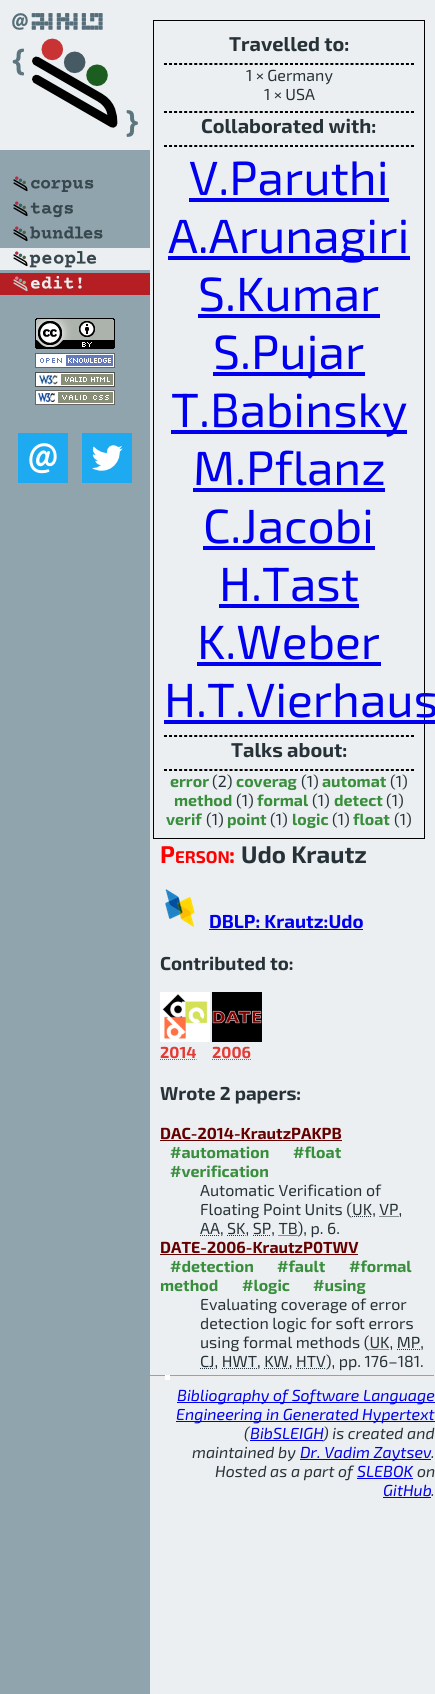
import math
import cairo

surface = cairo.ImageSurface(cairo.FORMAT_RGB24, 435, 1694)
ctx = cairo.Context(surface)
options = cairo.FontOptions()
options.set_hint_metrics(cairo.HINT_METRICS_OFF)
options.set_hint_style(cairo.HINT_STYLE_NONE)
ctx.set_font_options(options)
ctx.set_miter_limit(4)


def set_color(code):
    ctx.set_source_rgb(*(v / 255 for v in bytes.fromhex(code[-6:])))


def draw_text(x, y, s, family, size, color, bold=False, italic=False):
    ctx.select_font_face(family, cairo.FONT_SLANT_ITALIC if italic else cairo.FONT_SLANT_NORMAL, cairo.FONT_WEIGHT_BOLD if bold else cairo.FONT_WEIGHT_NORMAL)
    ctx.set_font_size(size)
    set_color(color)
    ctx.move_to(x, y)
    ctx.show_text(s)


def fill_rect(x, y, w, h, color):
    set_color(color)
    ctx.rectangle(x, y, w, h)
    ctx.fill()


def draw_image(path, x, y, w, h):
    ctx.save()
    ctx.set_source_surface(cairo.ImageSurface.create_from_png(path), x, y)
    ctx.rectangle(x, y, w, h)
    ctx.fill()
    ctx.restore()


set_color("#eceff1")
ctx.paint()
fill_rect(0, 150, 150, 1544, "#90a4ae")
draw_image("assets/img1.png", 0, 0, 150, 150)
draw_image("assets/img2.png", 13, 176, 81, 16)
draw_image("assets/img3.png", 13, 201, 60, 17)
draw_image("assets/img4.png", 13, 226, 90, 16)
draw_image("assets/img5.png", 0, 248, 150, 22)
draw_image("assets/img6.png", 0, 273, 150, 22)
draw_image("assets/img7.png", 35, 318, 80, 31)
draw_image("assets/img8.png", 35, 353, 80, 15)
draw_image("assets/img9.png", 35, 372, 80, 15)
draw_image("assets/img10.png", 35, 390, 80, 15)
draw_image("assets/img11.png", 18, 433, 50, 50)
draw_image("assets/img12.png", 82, 433, 50, 50)
ctx.rectangle(153.5, 20.5, 271, 818)
set_color("#000000")
ctx.set_line_width(1)
ctx.stroke()
draw_text(229, 51, "Travelled to:", "Exo 2", 20, "#263238", bold=True)
ctx.new_path()
ctx.move_to(164, 63.5)
ctx.line_to(414, 63.5)
set_color("#000000")
ctx.set_dash([3, 2.04])
ctx.stroke()
fill_rect(413, 63, 1, 2, "#000000")
ctx.new_path()
ctx.move_to(164, 64.5)
ctx.line_to(414, 64.5)
ctx.stroke()
draw_text(246, 81, "1 × Germany", "Exo 2", 16, "#263238")
draw_text(264, 100, "1 × USA", "Exo 2", 16, "#263238")
ctx.new_path()
ctx.move_to(164, 111.5)
ctx.line_to(414, 111.5)
set_color("#000000")
ctx.stroke()
fill_rect(413, 111, 1, 2, "#000000")
ctx.new_path()
ctx.move_to(164, 112.5)
ctx.line_to(414, 112.5)
ctx.stroke()
draw_text(201, 133, "Collaborated with:", "Exo 2", 20, "#263238", bold=True)
ctx.new_path()
ctx.move_to(164, 145.5)
ctx.line_to(414, 145.5)
set_color("#000000")
ctx.stroke()
fill_rect(413, 145, 1, 2, "#000000")
ctx.new_path()
ctx.move_to(164, 146.5)
ctx.line_to(414, 146.5)
ctx.stroke()
draw_text(189, 195, "V.Paruthi", "Exo 2", 48, "#0000ee")
fill_rect(189, 198, 200, 4, "#0000ee")
fill_rect(168, 256, 242, 4, "#0000ee")
draw_text(168, 253, "A.Arunagiri", "Exo 2", 48, "#0000ee")
draw_text(198, 311, "S.Kumar", "Exo 2", 48, "#0000ee")
fill_rect(198, 314, 182, 4, "#0000ee")
fill_rect(213, 372, 152, 4, "#0000ee")
draw_text(213, 369, "S.Pujar", "Exo 2", 48, "#0000ee")
fill_rect(171, 430, 236, 4, "#0000ee")
draw_text(171, 427, "T.Babinsky", "Exo 2", 48, "#0000ee")
draw_text(193, 485, "M.Pflanz", "Exo 2", 48, "#0000ee")
fill_rect(193, 488, 192, 4, "#0000ee")
draw_text(203, 543, "C.Jacobi", "Exo 2", 48, "#0000ee")
fill_rect(203, 546, 172, 4, "#0000ee")
draw_text(219, 601, "H.Tast", "Exo 2", 48, "#0000ee")
fill_rect(219, 604, 140, 4, "#0000ee")
draw_text(197, 659, "K.Weber", "Exo 2", 48, "#0000ee")
fill_rect(197, 662, 184, 4, "#0000ee")
draw_text(164, 717, "H.T.Vierhaus", "Exo 2", 48, "#0000ee")
fill_rect(164, 720, 271, 4, "#0000ee")
ctx.new_path()
ctx.move_to(164, 735.5)
ctx.line_to(414, 735.5)
set_color("#000000")
ctx.stroke()
fill_rect(413, 735, 1, 2, "#000000")
ctx.new_path()
ctx.move_to(164, 736.5)
ctx.line_to(414, 736.5)
ctx.stroke()
draw_text(231, 757, "Talks about:", "Exo 2", 20, "#263238", bold=True)
ctx.new_path()
ctx.move_to(164, 769.5)
ctx.line_to(414, 769.5)
set_color("#000000")
ctx.stroke()
fill_rect(413, 769, 1, 2, "#000000")
ctx.new_path()
ctx.move_to(164, 770.5)
ctx.line_to(414, 770.5)
ctx.stroke()
draw_text(170, 787, "error", "Exo 2", 16, "#388e3c", bold=True)
draw_text(212, 787, "(2)", "Exo 2", 16, "#263238")
draw_text(236, 787, "coverag", "Exo 2", 16, "#388e3c", bold=True)
draw_text(301, 787, "(1)", "Exo 2", 16, "#263238")
draw_text(322, 787, "automat", "Exo 2", 16, "#388e3c", bold=True)
draw_text(390, 787, "(1)", "Exo 2", 16, "#263238")
draw_text(174, 806, "method", "Exo 2", 16, "#388e3c", bold=True)
draw_text(236, 806, "(1)", "Exo 2", 16, "#263238")
draw_text(257, 806, "formal", "Exo 2", 16, "#388e3c", bold=True)
draw_text(312, 806, "(1)", "Exo 2", 16, "#263238")
draw_text(334, 806, "detect", "Exo 2", 16, "#388e3c", bold=True)
draw_text(386, 806, "(1)", "Exo 2", 16, "#263238")
draw_text(166, 825, "verif", "Exo 2", 16, "#388e3c", bold=True)
draw_text(206, 825, "(1)", "Exo 2", 16, "#263238")
draw_text(227, 825, "point", "Exo 2", 16, "#388e3c", bold=True)
draw_text(270, 825, "(1)", "Exo 2", 16, "#263238")
draw_text(292, 825, "logic", "Exo 2", 16, "#388e3c", bold=True)
draw_text(332, 825, "(1)", "Exo 2", 16, "#263238")
draw_text(353, 825, "float", "Exo 2", 16, "#388e3c", bold=True)
draw_text(394, 825, "(1)", "Exo 2", 16, "#263238")
draw_text(160, 863, "P", "Exo 2", 24, "#ff0000", bold=True)
draw_text(175, 863, "ERSON", "Exo 2", 17, "#ff0000", bold=True)
draw_text(229, 863, ":", "Exo 2", 24, "#ff0000", bold=True)
draw_text(241, 863, "Udo Krautz", "Exo 2", 24, "#263238", bold=True)
draw_image("assets/img13.png", 165, 889, 30, 38)
draw_text(209, 928, "DBLP: Krautz:Udo", "Exo 2", 18.75, "#0000ee", bold=True)
fill_rect(209, 929, 154, 1, "#0000ee")
draw_text(160, 970, "Contributed to:", "Exo 2", 18.75, "#263238", bold=True)
draw_image("assets/img14.png", 160, 992, 50, 50)
draw_text(160, 1058, "2014", "Exo 2", 16, "#e53935", bold=True)
ctx.new_path()
ctx.move_to(160, 1059.5)
ctx.line_to(196.5, 1059.5)
ctx.set_dash([1, 1])
ctx.stroke()
draw_image("assets/img15.png", 212, 992, 50, 50)
draw_text(212, 1058, "2006", "Exo 2", 16, "#e53935", bold=True)
ctx.new_path()
ctx.move_to(212, 1059.5)
ctx.line_to(251, 1059.5)
ctx.stroke()
draw_text(160, 1100, "Wrote 2 papers:", "Exo 2", 18.75, "#263238", bold=True)
draw_text(160, 1139, "DAC-2014-KrautzPAKPB", "Exo 2", 16, "#660000", bold=True)
fill_rect(160, 1140, 182, 1, "#660000")
draw_text(170, 1158, "#automation", "Exo 2", 16, "#388e3c", bold=True)
draw_text(293, 1158, "#float", "Exo 2", 16, "#388e3c", bold=True)
draw_text(170, 1177, "#verification", "Exo 2", 16, "#388e3c", bold=True)
draw_text(200, 1196, "Automatic Verification of", "Exo 2", 16, "#263238")
draw_text(200, 1215, "Floating Point Units (UK, VP,", "Exo 2", 16, "#263238")
ctx.new_path()
ctx.move_to(352, 1216.5)
ctx.line_to(372, 1216.5)
ctx.move_to(379.5, 1216.5)
ctx.line_to(398.5, 1216.5)
ctx.stroke()
ctx.new_path()
ctx.move_to(200, 1235.5)
ctx.line_to(220, 1235.5)
ctx.stroke()
draw_text(200, 1234, "AA, SK, SP, TB), p. 6.", "Exo 2", 16, "#263238")
ctx.new_path()
ctx.move_to(227, 1235.5)
ctx.line_to(245.5, 1235.5)
ctx.move_to(253, 1235.5)
ctx.line_to(271, 1235.5)
ctx.stroke()
ctx.new_path()
ctx.move_to(278.5, 1235.5)
ctx.line_to(297.5, 1235.5)
ctx.stroke()
draw_text(160, 1253, "DATE-2006-KrautzP0TWV", "Exo 2", 16, "#660000", bold=True)
fill_rect(160, 1254, 198, 1, "#660000")
draw_text(170, 1272, "#detection", "Exo 2", 16, "#388e3c", bold=True)
draw_text(277, 1272, "#fault", "Exo 2", 16, "#388e3c", bold=True)
draw_text(349, 1272, "#formal", "Exo 2", 16, "#388e3c", bold=True)
draw_text(160, 1291, "method", "Exo 2", 16, "#388e3c", bold=True)
draw_text(242, 1291, "#logic", "Exo 2", 16, "#388e3c", bold=True)
draw_text(313, 1291, "#using", "Exo 2", 16, "#388e3c", bold=True)
draw_text(200, 1310, "Evaluating coverage of error", "Exo 2", 16, "#263238")
draw_text(200, 1329, "detection logic for soft errors", "Exo 2", 16, "#263238")
draw_text(200, 1348, "using formal methods (UK, MP,", "Exo 2", 16, "#263238")
ctx.new_path()
ctx.move_to(369.5, 1349.5)
ctx.line_to(389.5, 1349.5)
ctx.move_to(397, 1349.5)
ctx.line_to(420, 1349.5)
ctx.stroke()
ctx.new_path()
ctx.move_to(200, 1368.5)
ctx.line_to(214.5, 1368.5)
ctx.stroke()
draw_text(200, 1367, "CJ, HWT, KW, HTV), pp. 176–181.", "Exo 2", 16, "#263238")
ctx.new_path()
ctx.move_to(222, 1368.5)
ctx.line_to(257, 1368.5)
ctx.stroke()
ctx.new_path()
ctx.move_to(264, 1368.5)
ctx.line_to(289, 1368.5)
ctx.move_to(296, 1368.5)
ctx.line_to(325.5, 1368.5)
ctx.stroke()
fill_rect(150, 1375, 285, 1, "#9f9f9f")
fill_rect(434, 1375, 1, 2, "#eeeeee")
fill_rect(150, 1376, 285, 1, "#eeeeee")
fill_rect(165, 1375, 5, 5, "#ffffff")
fill_rect(177, 1402, 258, 1, "#0000ee")
draw_text(177, 1401, "Bibliography of Software Language", "Exo 2", 16, "#0000ee", italic=True)
fill_rect(176, 1421, 259, 1, "#0000ee")
draw_text(176, 1420, "Engineering in Generated Hypertext", "Exo 2", 16, "#0000ee", italic=True)
draw_text(244, 1439, "(", "Exo 2", 16, "#263238", italic=True)
fill_rect(250, 1440, 73, 1, "#0000ee")
draw_text(250, 1439, "BibSLEIGH", "Exo 2", 16, "#0000ee", italic=True)
draw_text(323, 1439, ") is created and", "Exo 2", 16, "#263238", italic=True)
draw_text(192, 1458, "maintained by", "Exo 2", 16, "#263238", italic=True)
fill_rect(300, 1459, 131, 1, "#0000ee")
draw_text(300, 1458, "Dr. Vadim Zaytsev", "Exo 2", 16, "#0000ee", italic=True)
draw_text(431, 1458, ".", "Exo 2", 16, "#263238", italic=True)
draw_text(215, 1477, "Hosted as a part of", "Exo 2", 16, "#263238", italic=True)
fill_rect(357, 1478, 56, 1, "#0000ee")
draw_text(357, 1477, "SLEBOK", "Exo 2", 16, "#0000ee", italic=True)
draw_text(417, 1477, "on", "Exo 2", 16, "#263238", italic=True)
draw_text(383, 1496, "GitHub", "Exo 2", 16, "#0000ee", italic=True)
draw_text(431, 1496, ".", "Exo 2", 16, "#263238", italic=True)
fill_rect(383, 1497, 48, 1, "#0000ee")
surface.write_to_png("output.png")
